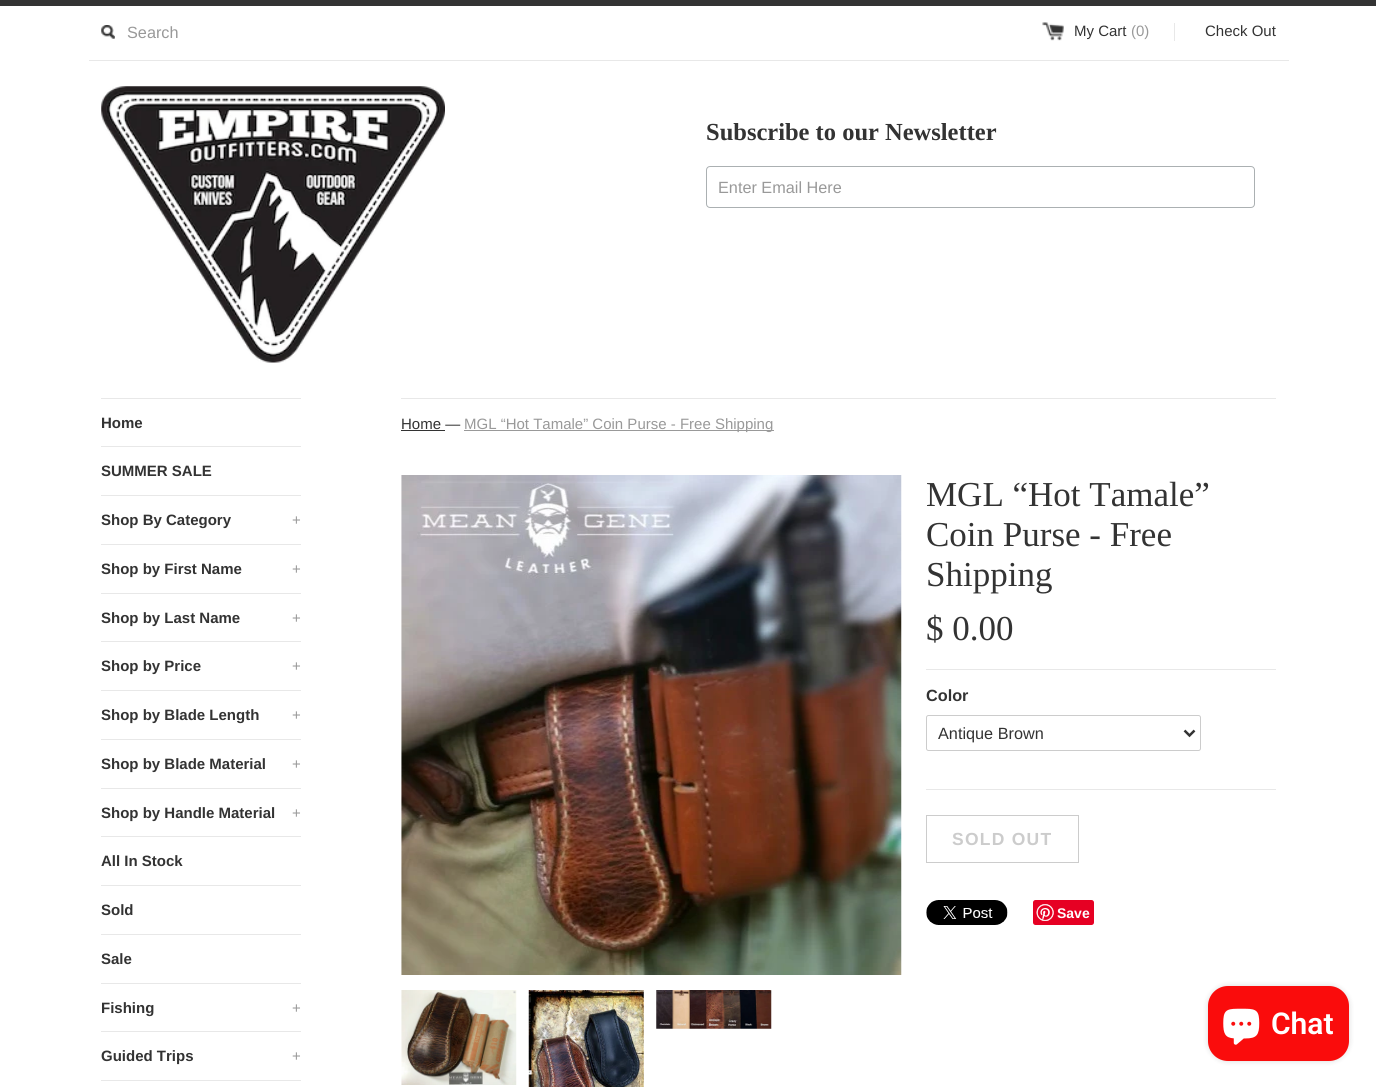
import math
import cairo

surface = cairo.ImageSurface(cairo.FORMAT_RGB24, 1376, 1087)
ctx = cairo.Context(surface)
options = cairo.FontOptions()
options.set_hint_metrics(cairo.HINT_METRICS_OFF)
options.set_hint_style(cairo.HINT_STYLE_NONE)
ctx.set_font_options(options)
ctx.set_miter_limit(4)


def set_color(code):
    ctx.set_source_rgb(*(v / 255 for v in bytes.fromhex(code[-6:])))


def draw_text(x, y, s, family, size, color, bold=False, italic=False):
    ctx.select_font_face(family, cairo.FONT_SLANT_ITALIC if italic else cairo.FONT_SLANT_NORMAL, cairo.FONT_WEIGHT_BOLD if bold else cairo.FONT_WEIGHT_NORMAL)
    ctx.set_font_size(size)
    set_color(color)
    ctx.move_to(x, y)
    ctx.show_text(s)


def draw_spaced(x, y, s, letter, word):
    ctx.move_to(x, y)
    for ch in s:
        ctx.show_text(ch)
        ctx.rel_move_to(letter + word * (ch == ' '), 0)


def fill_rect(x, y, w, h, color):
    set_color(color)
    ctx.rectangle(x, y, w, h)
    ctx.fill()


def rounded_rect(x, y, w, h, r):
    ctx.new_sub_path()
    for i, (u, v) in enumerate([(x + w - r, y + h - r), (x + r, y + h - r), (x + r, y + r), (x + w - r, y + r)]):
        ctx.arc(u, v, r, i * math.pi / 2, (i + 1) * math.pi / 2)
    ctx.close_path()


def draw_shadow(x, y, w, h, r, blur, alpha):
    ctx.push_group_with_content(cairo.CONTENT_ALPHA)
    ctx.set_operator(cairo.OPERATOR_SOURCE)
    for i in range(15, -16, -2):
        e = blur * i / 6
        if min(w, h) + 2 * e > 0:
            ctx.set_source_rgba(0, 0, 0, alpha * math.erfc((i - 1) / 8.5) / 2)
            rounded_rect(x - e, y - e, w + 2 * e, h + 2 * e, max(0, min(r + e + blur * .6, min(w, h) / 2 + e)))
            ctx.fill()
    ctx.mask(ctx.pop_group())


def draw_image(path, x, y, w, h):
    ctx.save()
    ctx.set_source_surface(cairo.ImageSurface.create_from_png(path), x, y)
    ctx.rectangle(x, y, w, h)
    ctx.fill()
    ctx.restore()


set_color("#ffffff")
ctx.paint()
fill_rect(0, 0, 1376, 6, "#333333")
fill_rect(89, 60, 1200, 1, "#e8e8e8")
draw_image("assets/img1.png", 101, 25, 14, 14)
draw_text(127, 38, "Search", "Liberation Sans", 16.25, "#999999")
draw_image("assets/img2.png", 1042, 22, 22, 19)
draw_text(1074, 36, "My Cart", "Liberation Sans", 15, "#333333")
draw_text(1131, 36, "(0)", "Liberation Sans", 15, "#999999")
fill_rect(1174, 23, 1, 18, "#e8e8e8")
draw_text(1205, 36, "Check Out", "Liberation Sans", 15, "#333333")
draw_image("assets/img3.png", 101, 86, 344, 277)
draw_text(706, 140, "Subscribe to our Newsletter", "Liberation Serif", 24.5, "#333333", bold=True)
rounded_rect(706.5, 166.5, 548, 41, 3.5)
set_color("#abb0b2")
ctx.set_line_width(1)
ctx.stroke()
draw_text(718, 193, "Enter Email Here", "Liberation Sans", 16.25, "#999999")
fill_rect(101, 398, 200, 1, "#e8e8e8")
draw_text(101, 428, "Home", "Liberation Sans", 15, "#333333", bold=True)
fill_rect(101, 446, 200, 1, "#e8e8e8")
draw_text(101, 476, "SUMMER SALE", "Liberation Sans", 15, "#333333", bold=True)
fill_rect(101, 495, 200, 1, "#e8e8e8")
draw_text(101, 525, "Shop By Category", "Liberation Sans", 15, "#333333", bold=True)
draw_text(292, 525, "+", "Liberation Sans", 15, "#999999")
fill_rect(101, 544, 200, 1, "#e8e8e8")
draw_text(101, 574, "Shop by First Name", "Liberation Sans", 15, "#333333", bold=True)
draw_text(292, 574, "+", "Liberation Sans", 15, "#999999")
fill_rect(101, 593, 200, 1, "#e8e8e8")
draw_text(101, 623, "Shop by Last Name", "Liberation Sans", 15, "#333333", bold=True)
draw_text(292, 623, "+", "Liberation Sans", 15, "#999999")
fill_rect(101, 641, 200, 1, "#e8e8e8")
draw_text(101, 671, "Shop by Price", "Liberation Sans", 15, "#333333", bold=True)
draw_text(292, 671, "+", "Liberation Sans", 15, "#999999")
fill_rect(101, 690, 200, 1, "#e8e8e8")
draw_text(101, 720, "Shop by Blade Length", "Liberation Sans", 15, "#333333", bold=True)
draw_text(292, 720, "+", "Liberation Sans", 15, "#999999")
fill_rect(101, 739, 200, 1, "#e8e8e8")
draw_text(101, 769, "Shop by Blade Material", "Liberation Sans", 15, "#333333", bold=True)
draw_text(292, 769, "+", "Liberation Sans", 15, "#999999")
fill_rect(101, 788, 200, 1, "#e8e8e8")
draw_text(101, 818, "Shop by Handle Material", "Liberation Sans", 15, "#333333", bold=True)
draw_text(292, 818, "+", "Liberation Sans", 15, "#999999")
fill_rect(101, 836, 200, 1, "#e8e8e8")
draw_text(101, 866, "All In Stock", "Liberation Sans", 15, "#333333", bold=True)
fill_rect(101, 885, 200, 1, "#e8e8e8")
draw_text(101, 915, "Sold", "Liberation Sans", 15, "#333333", bold=True)
fill_rect(101, 934, 200, 1, "#e8e8e8")
draw_text(101, 964, "Sale", "Liberation Sans", 15, "#333333", bold=True)
fill_rect(101, 983, 200, 1, "#e8e8e8")
draw_text(101, 1013, "Fishing", "Liberation Sans", 15, "#333333", bold=True)
draw_text(292, 1013, "+", "Liberation Sans", 15, "#999999")
fill_rect(101, 1031, 200, 1, "#e8e8e8")
draw_text(101, 1061, "Guided Trips", "Liberation Sans", 15, "#333333", bold=True)
draw_text(292, 1061, "+", "Liberation Sans", 15, "#999999")
fill_rect(101, 1080, 200, 1, "#e8e8e8")
fill_rect(401, 398, 875, 1, "#e8e8e8")
draw_text(401, 429, "Home —", "Liberation Sans", 15, "#333333")
fill_rect(401, 430, 44, 1, "#333333")
fill_rect(464, 430, 310, 1, "#999999")
draw_text(464, 429, "MGL “Hot Tamale” Coin Purse - Free Shipping", "Liberation Sans", 15, "#999999")
draw_image("assets/img4.png", 401, 475, 501, 500)
draw_image("assets/img5.png", 401, 990, 116, 95)
draw_image("assets/img6.png", 528, 990, 116, 97)
draw_image("assets/img7.png", 656, 990, 116, 39)
draw_text(926, 506, "MGL “Hot Tamale”", "Liberation Serif", 35, "#333333")
draw_text(926, 546, "Coin Purse - Free", "Liberation Serif", 35, "#333333")
draw_text(926, 586, "Shipping", "Liberation Serif", 35, "#333333")
draw_text(926, 640, "$ 0.00", "Liberation Serif", 35, "#333333")
fill_rect(926, 669, 350, 1, "#e8e8e8")
fill_rect(926, 789, 350, 1, "#e8e8e8")
draw_text(926, 701, "Color", "Liberation Sans", 16.25, "#333333", bold=True)
rounded_rect(926.5, 715.5, 274, 35, 2)
set_color("#cccccc")
ctx.stroke()
ctx.new_path()
ctx.move_to(1184.5, 730.5)
ctx.line_to(1189.5, 735.5)
ctx.line_to(1194.5, 730.5)
set_color("#333333")
ctx.set_line_width(2.5)
ctx.stroke()
draw_text(938, 739, "Antique Brown", "Liberation Sans", 16.25, "#333333")
ctx.rectangle(926.5, 815.5, 152, 47)
set_color("#cccccc")
ctx.set_line_width(1)
ctx.stroke()
ctx.select_font_face("Liberation Sans", cairo.FONT_SLANT_NORMAL, cairo.FONT_WEIGHT_BOLD)
ctx.set_font_size(17.5)
draw_spaced(952, 845, "SOLD OUT", 1.25, 0)
draw_image("assets/img8.png", 926, 900, 82, 25)
set_color("#e60023")
rounded_rect(1033, 900, 61, 25, 2.5)
ctx.fill()
draw_image("assets/img9.png", 1036, 904, 18, 17)
draw_text(1057, 918, "Save", "Liberation Sans", 14, "#ffffff", bold=True)
set_color("#000000")
draw_shadow(1208, 986, 141, 75, 20, 3, 0.15)
set_color("#fa0c0c")
rounded_rect(1208, 986, 141, 75, 20)
ctx.fill()
draw_image("assets/img10.png", 1223, 1008, 37, 37)
draw_text(1271, 1034, "Chat", "Roboto SemiBold", 30, "#ffffff")
surface.write_to_png("output.png")
